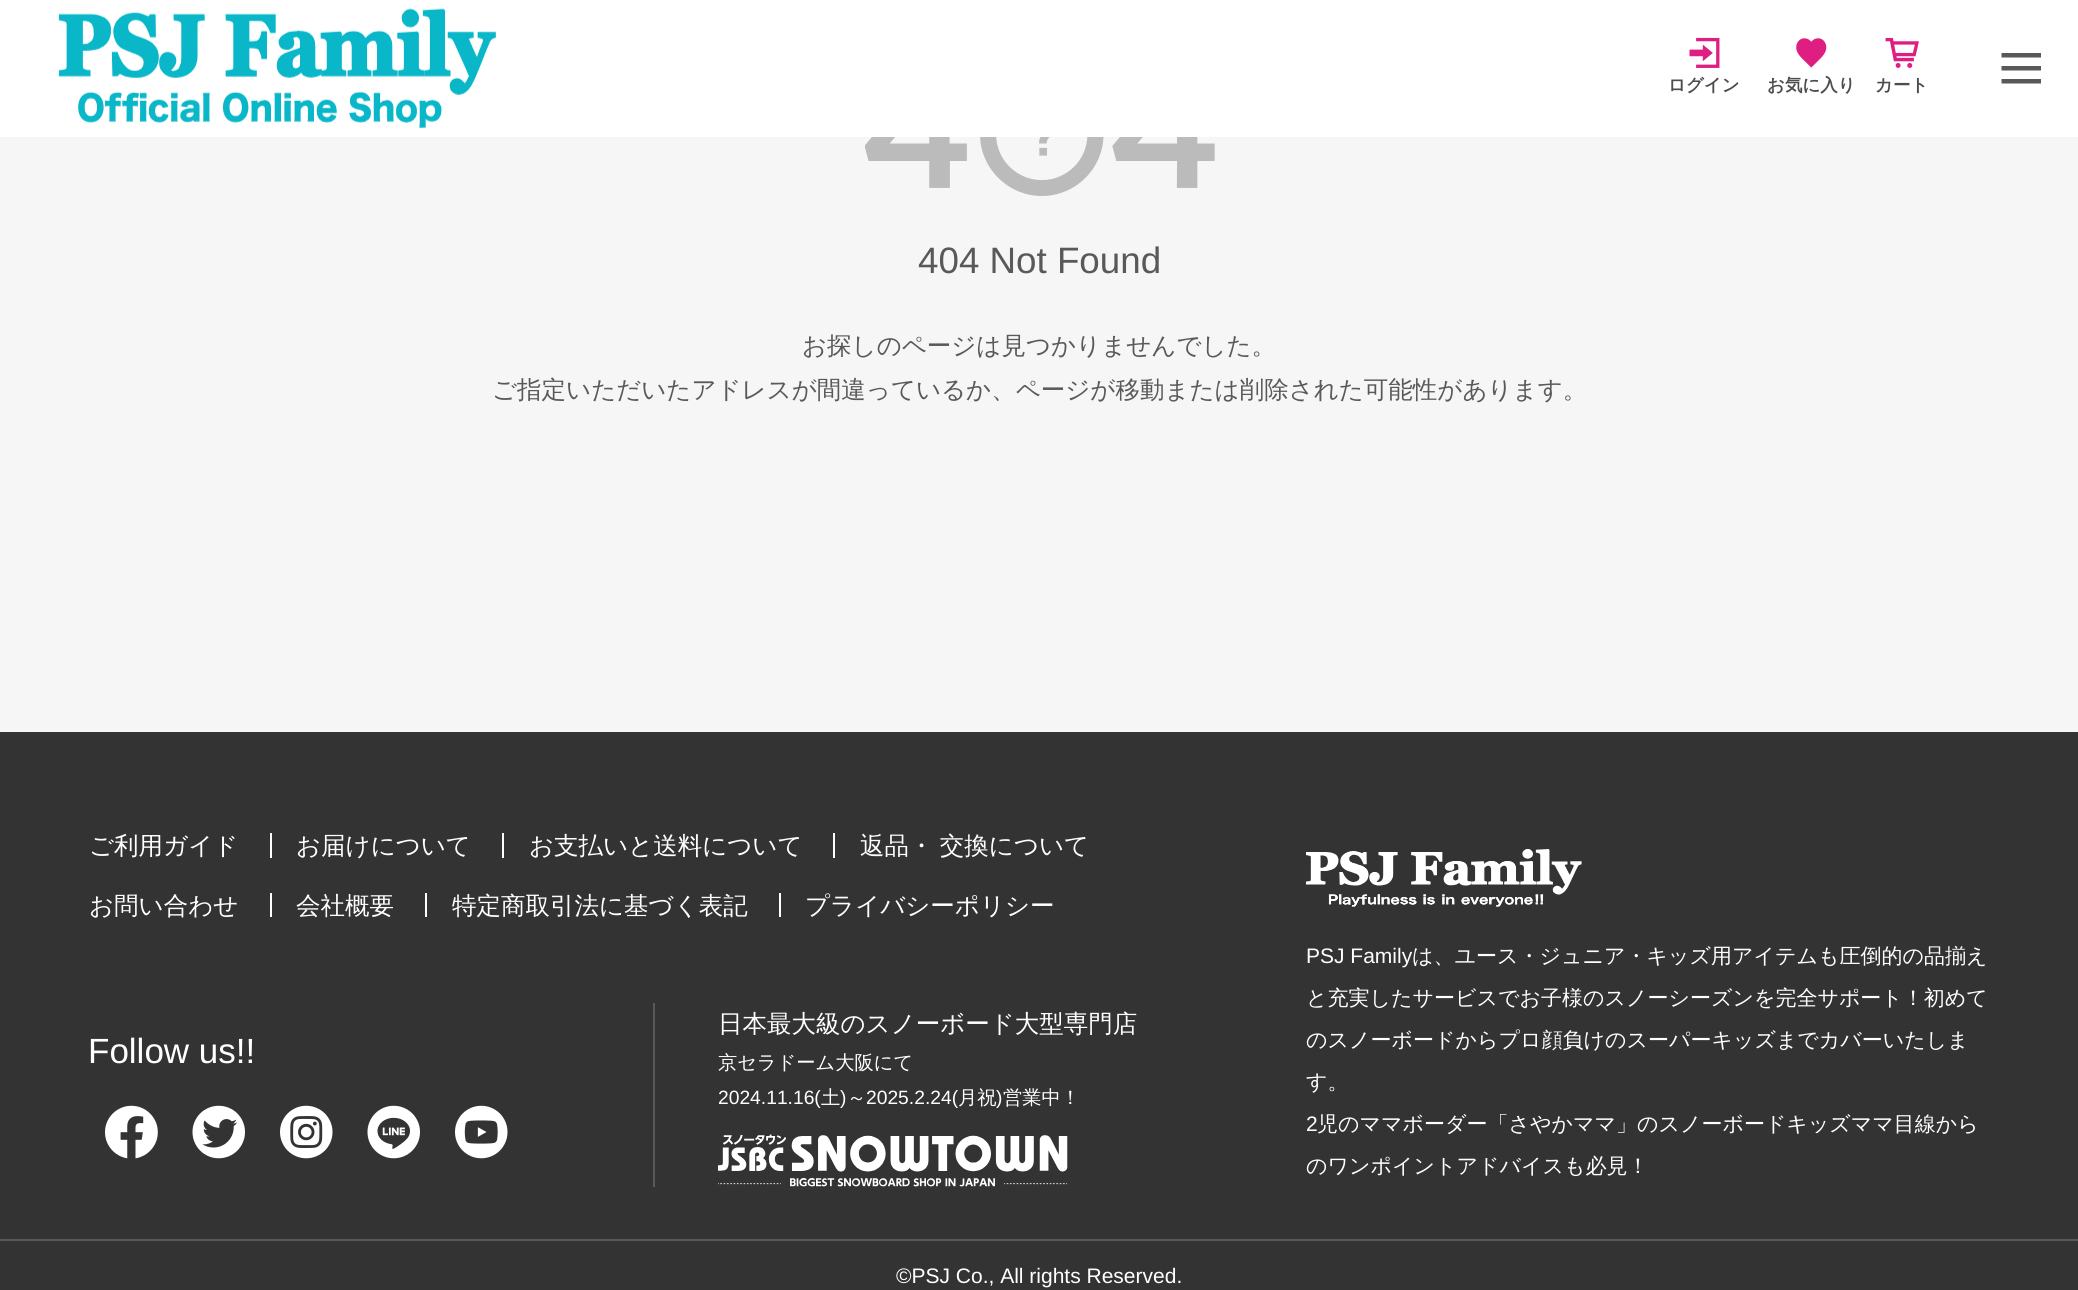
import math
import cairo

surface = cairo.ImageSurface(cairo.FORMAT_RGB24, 2078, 1290)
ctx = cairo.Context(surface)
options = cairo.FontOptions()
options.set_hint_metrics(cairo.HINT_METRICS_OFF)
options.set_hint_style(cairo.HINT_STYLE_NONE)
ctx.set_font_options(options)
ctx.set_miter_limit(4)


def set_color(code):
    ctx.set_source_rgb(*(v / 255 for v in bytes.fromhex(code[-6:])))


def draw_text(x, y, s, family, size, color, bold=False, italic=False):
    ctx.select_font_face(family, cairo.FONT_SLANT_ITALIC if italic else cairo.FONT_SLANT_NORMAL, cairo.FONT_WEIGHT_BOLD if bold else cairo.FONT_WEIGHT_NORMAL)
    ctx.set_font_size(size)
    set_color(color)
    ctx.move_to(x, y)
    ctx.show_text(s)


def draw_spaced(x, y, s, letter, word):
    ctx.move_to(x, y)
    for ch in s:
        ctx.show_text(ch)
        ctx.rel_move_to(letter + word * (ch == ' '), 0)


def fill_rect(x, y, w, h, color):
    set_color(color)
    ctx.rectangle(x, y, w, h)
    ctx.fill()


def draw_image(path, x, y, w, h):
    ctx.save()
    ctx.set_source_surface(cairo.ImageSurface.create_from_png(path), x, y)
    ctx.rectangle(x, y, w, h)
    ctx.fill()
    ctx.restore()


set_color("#f6f6f6")
ctx.paint()
fill_rect(0, 0, 2078, 137, "#ffffff")
draw_image("assets/img1.png", 58, 8, 438, 120)
draw_image("assets/img2.png", 1689, 37, 31, 31)
draw_text(1668, 91, "ログイン", "WenQuanYi Zen Hei", 17.5, "#4d4d4d", bold=True)
draw_image("assets/img3.png", 1796, 38, 31, 30)
draw_text(1767, 91, "お気に入り", "WenQuanYi Zen Hei", 17.5, "#4d4d4d", bold=True)
draw_image("assets/img4.png", 1885, 37, 34, 31)
draw_text(1875, 91, "カート", "WenQuanYi Zen Hei", 17.5, "#4d4d4d", bold=True)
set_color("#595959")
ctx.new_path()
ctx.move_to(2001.5, 53)
ctx.line_to(2001.5, 57.5)
ctx.line_to(2041, 57.5)
ctx.line_to(2041, 53)
ctx.close_path()
ctx.move_to(2001.5, 66)
ctx.line_to(2001.5, 70.5)
ctx.line_to(2041, 70.5)
ctx.line_to(2041, 66)
ctx.close_path()
ctx.move_to(2001.5, 79)
ctx.line_to(2001.5, 83.5)
ctx.line_to(2041, 83.5)
ctx.line_to(2041, 79)
ctx.close_path()
ctx.fill()
draw_image("assets/img5.png", 865, 137, 350, 59)
draw_text(918, 273, "404 Not Found", "Liberation Sans", 36.75, "#595959")
draw_text(802, 354, "お探しのページは見つかりませんでした。", "WenQuanYi Zen Hei Medium", 24.5, "#595959")
draw_text(492, 398, "ご指定いただいたアドレスが間違っているか、ページが移動または削除された可能性があります。", "WenQuanYi Zen Hei Medium", 24.5, "#595959")
fill_rect(0, 732, 2078, 558, "#333333")
draw_text(89, 854, "ご利用ガイド", "WenQuanYi Zen Hei Medium", 24.5, "#ffffff")
fill_rect(270, 833, 2, 25, "#ffffff")
draw_text(296, 854, "お届けについて", "WenQuanYi Zen Hei Medium", 24.5, "#ffffff")
fill_rect(502, 833, 2, 25, "#ffffff")
draw_text(529, 854, "お支払いと送料について", "WenQuanYi Zen Hei Medium", 24.5, "#ffffff")
fill_rect(833, 833, 2, 25, "#ffffff")
draw_spaced(860, 854, "返品・ 交換について", 0, -1)
draw_text(89, 914, "お問い合わせ", "WenQuanYi Zen Hei Medium", 24.5, "#ffffff")
fill_rect(270, 893, 2, 24, "#ffffff")
draw_text(296, 914, "会社概要", "WenQuanYi Zen Hei Medium", 24.5, "#ffffff")
fill_rect(425, 893, 2, 24, "#ffffff")
draw_text(452, 914, "特定商取引法に基づく表記", "WenQuanYi Zen Hei Medium", 24.5, "#ffffff")
fill_rect(779, 893, 2, 24, "#ffffff")
draw_text(805, 914, "プライバシーポリシー", "WenQuanYi Zen Hei Medium", 24.5, "#ffffff")
draw_text(88, 1063, "Follow us!!", "Liberation Sans", 35, "#ffffff")
draw_image("assets/img6.png", 105, 1105, 53, 54)
draw_image("assets/img7.png", 192, 1105, 53, 54)
draw_image("assets/img8.png", 280, 1105, 53, 54)
draw_image("assets/img9.png", 367, 1105, 53, 54)
draw_image("assets/img10.png", 455, 1105, 53, 54)
fill_rect(653, 1003, 2, 184, "#595959")
draw_text(718, 1032, "日本最大級のスノーボード大型専門店", "WenQuanYi Zen Hei Medium", 24.5, "#ffffff")
draw_text(718, 1069, "京セラドーム大阪にて", "WenQuanYi Zen Hei Medium", 19.25, "#ffffff")
draw_text(718, 1104, "2024.11.16(", "Liberation Sans", 19.25, "#ffffff")
draw_text(821, 1104, "土", "WenQuanYi Zen Hei Medium", 19.25, "#ffffff")
draw_text(840, 1104, ")", "Liberation Sans", 19.25, "#ffffff")
draw_text(847, 1104, "～", "WenQuanYi Zen Hei Medium", 19.25, "#ffffff")
draw_text(866, 1104, "2025.2.24(", "Liberation Sans", 19.25, "#ffffff")
draw_text(958, 1104, "月祝", "WenQuanYi Zen Hei Medium", 19.25, "#ffffff")
draw_text(996, 1104, ")", "Liberation Sans", 19.25, "#ffffff")
draw_text(1003, 1104, "営業中！", "WenQuanYi Zen Hei Medium", 19.25, "#ffffff")
draw_image("assets/img11.png", 718, 1134, 350, 53)
draw_image("assets/img12.png", 1306, 849, 276, 58)
draw_text(1306, 963, "PSJ Family", "Liberation Sans", 21, "#ffffff")
draw_text(1412, 963, "は、ユース・ジュニア・キッズ用アイテムも圧倒的の品揃え", "WenQuanYi Zen Hei Medium", 21, "#ffffff")
draw_text(1306, 1005, "と充実したサービスでお子様のスノーシーズンを完全サポート！初めて", "WenQuanYi Zen Hei Medium", 21, "#ffffff")
draw_text(1306, 1047, "のスノーボードからプロ顔負けのスーパーキッズまでカバーいたしま", "WenQuanYi Zen Hei Medium", 21, "#ffffff")
draw_text(1306, 1089, "す。", "WenQuanYi Zen Hei Medium", 21, "#ffffff")
draw_text(1306, 1131, "2", "Liberation Sans", 21, "#ffffff")
draw_text(1317, 1131, "児のママボーダー「さやかママ」のスノーボードキッズママ目線から", "WenQuanYi Zen Hei Medium", 21, "#ffffff")
draw_text(1306, 1173, "のワンポイントアドバイスも必見！", "WenQuanYi Zen Hei Medium", 21, "#ffffff")
fill_rect(0, 1239, 2078, 2, "#595959")
draw_text(896, 1283, "©PSJ Co., All rights Reserved.", "Liberation Sans", 21, "#ffffff")
surface.write_to_png("output.png")
